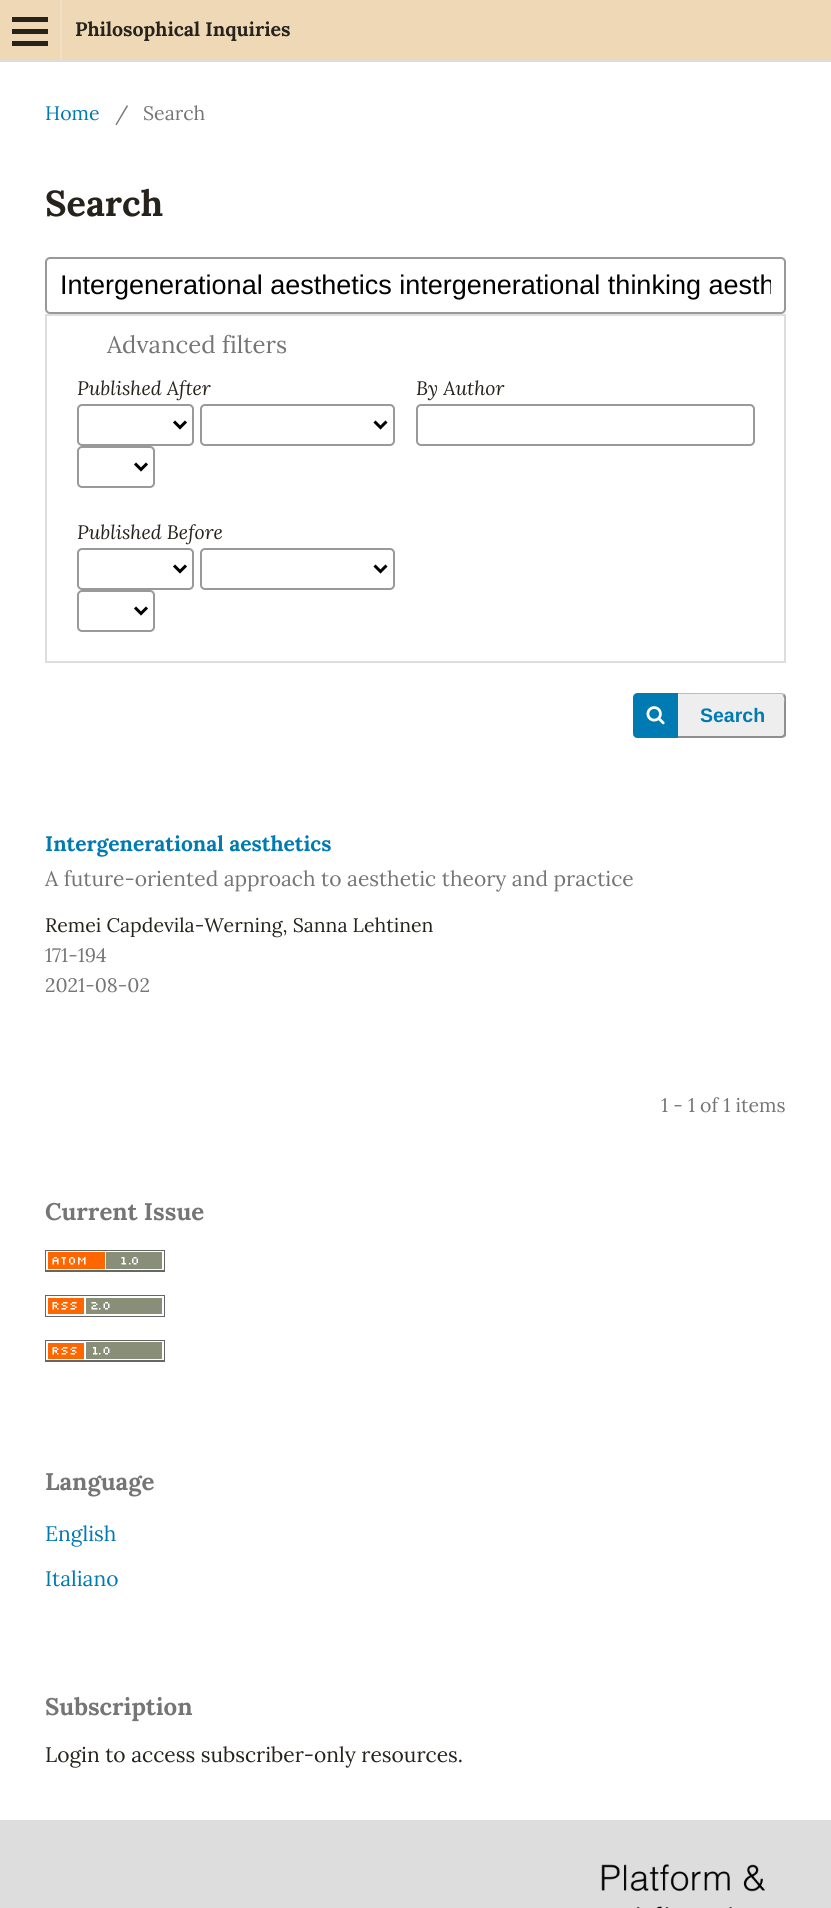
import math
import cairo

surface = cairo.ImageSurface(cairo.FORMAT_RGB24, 831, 1908)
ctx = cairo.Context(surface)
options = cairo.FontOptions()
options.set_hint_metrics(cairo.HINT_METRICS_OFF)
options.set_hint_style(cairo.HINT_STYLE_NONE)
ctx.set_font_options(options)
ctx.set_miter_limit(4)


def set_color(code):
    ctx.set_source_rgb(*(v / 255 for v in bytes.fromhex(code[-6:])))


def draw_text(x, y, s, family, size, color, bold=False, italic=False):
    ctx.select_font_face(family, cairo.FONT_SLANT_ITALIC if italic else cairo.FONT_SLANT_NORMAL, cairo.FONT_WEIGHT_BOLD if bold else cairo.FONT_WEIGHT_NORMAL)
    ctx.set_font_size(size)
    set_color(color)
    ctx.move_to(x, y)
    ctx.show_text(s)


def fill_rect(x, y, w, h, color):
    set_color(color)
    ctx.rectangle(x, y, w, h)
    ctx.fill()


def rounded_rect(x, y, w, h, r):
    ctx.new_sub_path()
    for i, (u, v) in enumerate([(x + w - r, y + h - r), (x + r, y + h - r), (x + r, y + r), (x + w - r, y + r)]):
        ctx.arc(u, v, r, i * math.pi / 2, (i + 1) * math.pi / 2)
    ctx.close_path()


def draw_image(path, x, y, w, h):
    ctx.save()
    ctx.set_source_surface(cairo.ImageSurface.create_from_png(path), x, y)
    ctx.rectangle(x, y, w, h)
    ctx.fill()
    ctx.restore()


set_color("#ffffff")
ctx.paint()
fill_rect(0, 0, 831, 60, "#efd8b5")
fill_rect(0, 60, 831, 2, "#dddddd")
fill_rect(60, 0, 2, 60, "#f2e0c4")
fill_rect(12, 41, 36, 5, "#26231d")
fill_rect(12, 17, 36, 5, "#26231d")
fill_rect(12, 29, 36, 5, "#26231d")
draw_text(75, 36, "Philosophical Inquiries", "Lora", 19.5, "#26231d", bold=True)
draw_text(45, 120, "Home", "Lora", 19.5, "#007ab2")
draw_text(115, 120, "/", "Lora", 19.5, "#757575")
draw_text(143, 120, "Search", "Lora", 19.5, "#757575")
draw_text(45, 216, "Search", "Lora", 36, "#26231d", bold=True)
rounded_rect(46, 258, 739, 55, 4)
set_color("#999999")
ctx.stroke()
ctx.save()
ctx.rectangle(60, 257, 711, 57)
ctx.clip()
draw_text(60, 294, "Intergenerational aesthetics intergenerational thinking aesth", "Liberation Sans", 27, "#000000")
ctx.restore()
ctx.rectangle(46, 315, 739, 347)
set_color("#dddddd")
ctx.stroke()
draw_text(107, 353, "Advanced filters", "Lora", 24, "#757575")
draw_text(77, 395, "Published After", "Lora", 19.5, "#26231d", italic=True)
rounded_rect(78, 405, 115, 40, 4)
set_color("#999999")
ctx.stroke()
ctx.new_path()
ctx.move_to(174, 421.5)
ctx.line_to(180, 427.5)
ctx.line_to(186, 421.5)
set_color("#000000")
ctx.set_line_width(3)
ctx.stroke()
rounded_rect(201, 405, 193, 40, 4)
set_color("#999999")
ctx.set_line_width(2)
ctx.stroke()
ctx.new_path()
ctx.move_to(374.5, 421.5)
ctx.line_to(380.5, 427.5)
ctx.line_to(386.5, 421.5)
set_color("#000000")
ctx.set_line_width(3)
ctx.stroke()
rounded_rect(78, 447, 76, 40, 4)
set_color("#999999")
ctx.set_line_width(2)
ctx.stroke()
ctx.new_path()
ctx.move_to(135, 463.5)
ctx.line_to(141, 469.5)
ctx.line_to(147, 463.5)
set_color("#000000")
ctx.set_line_width(3)
ctx.stroke()
draw_text(77, 539, "Published Before", "Lora", 19.5, "#26231d", italic=True)
rounded_rect(78, 549, 115, 40, 4)
set_color("#999999")
ctx.set_line_width(2)
ctx.stroke()
ctx.new_path()
ctx.move_to(174, 565.5)
ctx.line_to(180, 571.5)
ctx.line_to(186, 565.5)
set_color("#000000")
ctx.set_line_width(3)
ctx.stroke()
rounded_rect(201, 549, 193, 40, 4)
set_color("#999999")
ctx.set_line_width(2)
ctx.stroke()
ctx.new_path()
ctx.move_to(374.5, 565.5)
ctx.line_to(380.5, 571.5)
ctx.line_to(386.5, 565.5)
set_color("#000000")
ctx.set_line_width(3)
ctx.stroke()
rounded_rect(78, 591, 76, 40, 4)
set_color("#999999")
ctx.set_line_width(2)
ctx.stroke()
ctx.new_path()
ctx.move_to(135, 607.5)
ctx.line_to(141, 613.5)
ctx.line_to(147, 607.5)
set_color("#000000")
ctx.set_line_width(3)
ctx.stroke()
draw_text(416, 395, "By Author", "Lora", 19.5, "#26231d", italic=True)
rounded_rect(417, 405, 337, 40, 4)
set_color("#999999")
ctx.set_line_width(2)
ctx.stroke()
set_color("#eeeeee")
rounded_rect(633, 693, 153, 45, 5)
ctx.fill()
set_color("#bbbbbb")
ctx.new_path()
ctx.move_to(638, 693)
ctx.curve_to(635, 693, 633, 695, 633, 698)
ctx.curve_to(633, 695, 636, 694, 638, 694)
ctx.line_to(782, 694)
ctx.line_to(783, 696)
ctx.line_to(785, 694)
ctx.line_to(782, 693)
ctx.close_path()
ctx.fill()
ctx.set_source_rgba(0, 0, 0, 0.4)
ctx.new_path()
ctx.move_to(783, 735)
ctx.line_to(784, 734)
ctx.line_to(784, 704)
ctx.curve_to(784, 702, 785, 698, 783, 696)
ctx.line_to(785, 694)
ctx.curve_to(785, 695, 786, 696, 786, 698)
ctx.line_to(786, 734)
ctx.curve_to(786, 735, 786, 736, 785, 737)
ctx.close_path()
ctx.fill()
ctx.new_path()
ctx.move_to(638, 738)
ctx.line_to(782, 738)
ctx.line_to(785, 737)
ctx.line_to(783, 735)
ctx.line_to(782, 736)
ctx.line_to(638, 736)
ctx.curve_to(635, 736, 633, 735, 633, 734)
ctx.curve_to(633, 736, 635, 738, 638, 738)
ctx.close_path()
ctx.fill()
set_color("#007ab2")
ctx.new_path()
ctx.move_to(638, 693)
ctx.line_to(678, 693)
ctx.line_to(678, 738)
ctx.line_to(638, 738)
ctx.curve_to(635, 738, 633, 736, 633, 733)
ctx.line_to(633, 698)
ctx.curve_to(633, 695, 635, 693, 638, 693)
ctx.close_path()
ctx.fill()
draw_image("assets/img1.png", 646, 706, 19, 19)
draw_text(700, 722, "Search", "Liberation Sans", 19.5, "#007ab2", bold=True)
draw_text(45, 851, "Intergenerational aesthetics", "Lora", 21, "#007ab2", bold=True)
draw_text(45, 886, "A future-oriented approach to aesthetic theory and practice", "Lora", 21, "#757575")
draw_text(45, 932, "Remei Capdevila-Werning, Sanna Lehtinen", "Lora", 19.5, "#26231d")
draw_text(45, 962, "171-194", "Lora", 19.5, "#757575")
draw_text(45, 992, "2021-08-02", "Lora", 19.5, "#757575")
draw_text(661, 1112, "1 - 1 of 1 items", "Lora", 19.5, "#757575")
draw_text(45, 1220, "Current Issue", "Lora", 24, "#757575", bold=True)
draw_image("assets/img2.png", 45, 1250, 120, 22)
draw_image("assets/img3.png", 45, 1295, 120, 22)
draw_image("assets/img4.png", 45, 1340, 120, 22)
draw_text(45, 1490, "Language", "Lora", 24, "#757575", bold=True)
draw_text(45, 1541, "English", "Lora", 21, "#007ab2")
draw_text(45, 1586, "Italiano", "Lora", 21, "#007ab2")
draw_text(45, 1715, "Subscription", "Lora", 24, "#757575", bold=True)
draw_text(45, 1762, "Login to access subscriber-only resources.", "Lora", 21, "#26231d")
fill_rect(0, 1820, 831, 88, "#dddddd")
draw_image("assets/img5.png", 601, 1864, 164, 44)
surface.write_to_png("output.png")
